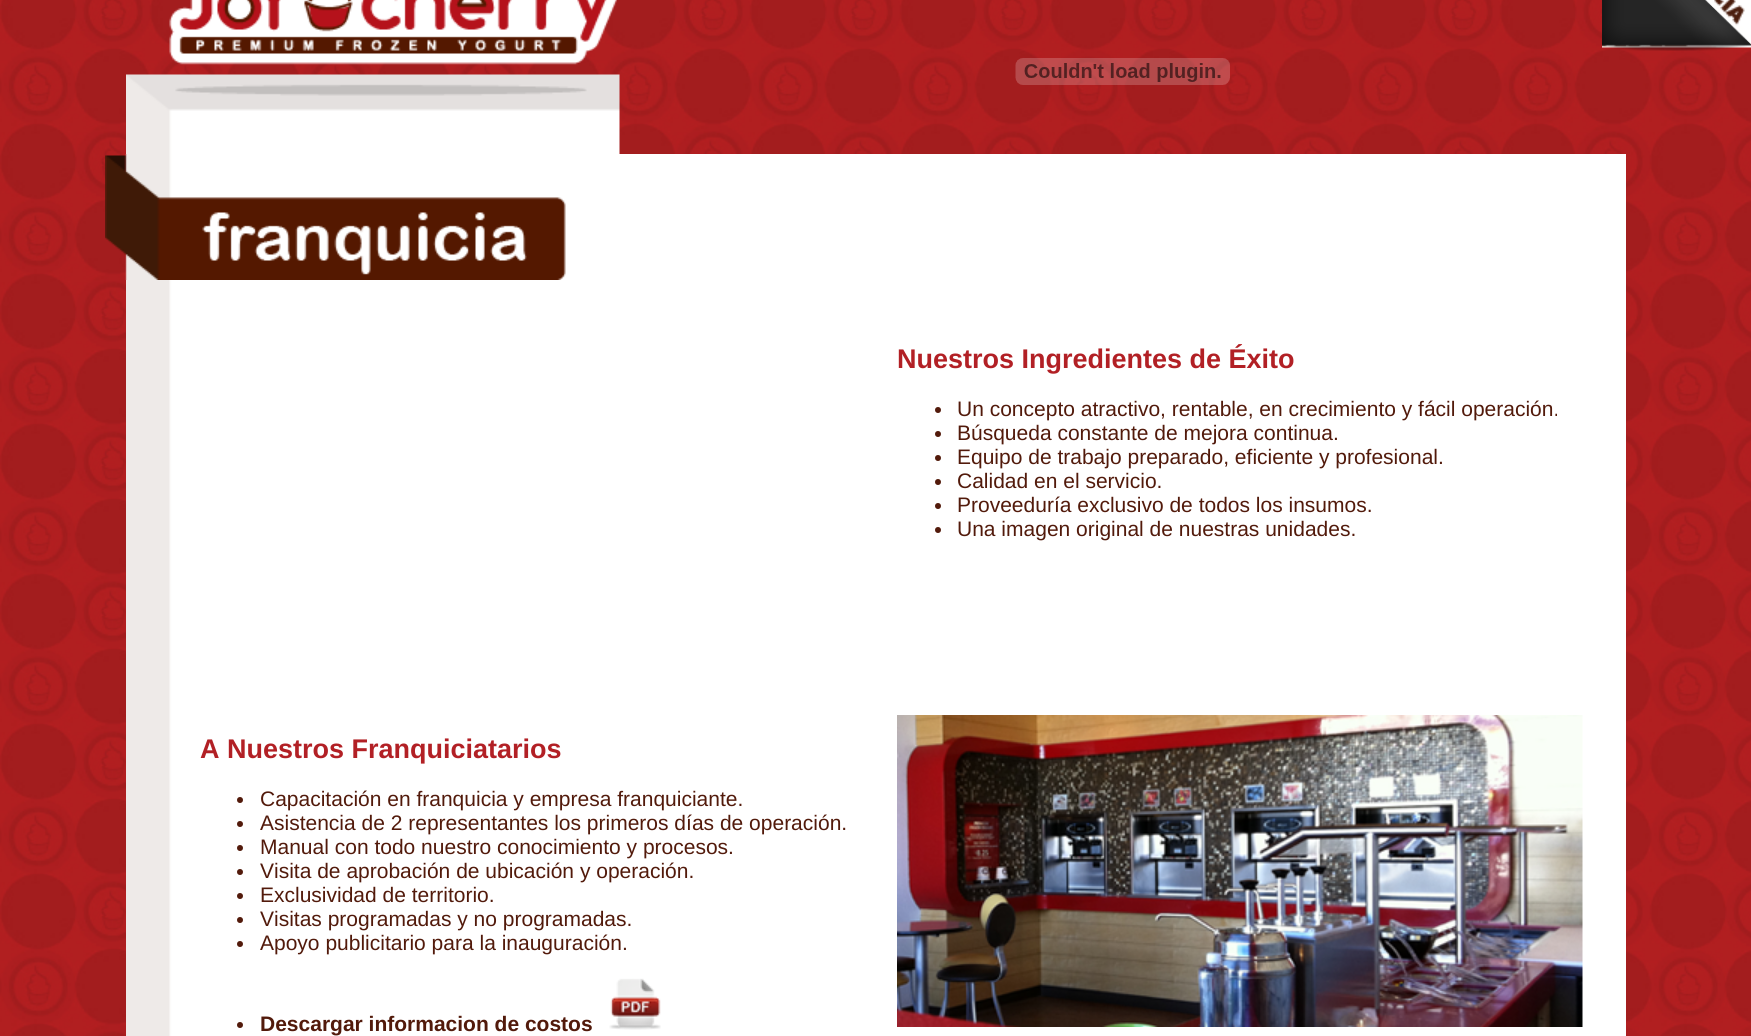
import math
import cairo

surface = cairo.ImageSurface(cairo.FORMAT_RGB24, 1751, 1036)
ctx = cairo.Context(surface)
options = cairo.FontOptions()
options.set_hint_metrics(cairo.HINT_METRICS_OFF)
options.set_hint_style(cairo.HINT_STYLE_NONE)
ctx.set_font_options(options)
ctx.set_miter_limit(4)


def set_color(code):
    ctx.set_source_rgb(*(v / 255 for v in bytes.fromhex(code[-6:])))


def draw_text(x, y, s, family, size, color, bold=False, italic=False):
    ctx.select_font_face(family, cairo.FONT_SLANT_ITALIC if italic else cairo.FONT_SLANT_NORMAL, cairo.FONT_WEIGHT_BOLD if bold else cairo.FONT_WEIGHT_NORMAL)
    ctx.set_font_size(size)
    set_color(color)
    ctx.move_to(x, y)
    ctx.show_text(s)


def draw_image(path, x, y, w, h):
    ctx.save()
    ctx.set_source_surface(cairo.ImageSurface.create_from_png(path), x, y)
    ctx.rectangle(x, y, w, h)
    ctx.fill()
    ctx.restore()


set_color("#ffffff")
ctx.paint()
draw_image("assets/img1.png", 0, 0, 1751, 1036)
draw_image("assets/img2.png", 1602, 0, 149, 48)
draw_image("assets/img3.png", 1602, 0, 149, 51)
draw_image("assets/img4.png", 126, 0, 494, 154)
draw_image("assets/img5.png", 1015, 58, 215, 27)
draw_image("assets/img6.png", 105, 154, 1521, 126)
draw_image("assets/img7.png", 126, 280, 1500, 756)
draw_text(897, 368, "Nuestros Ingredientes de Éxito", "Liberation Sans", 27, "#b22025", bold=True)
set_color("#521a0b")
ctx.new_path()
ctx.arc(938, 410, 3, 0, 2 * math.pi)
ctx.fill()
draw_text(957, 416, "Un concepto atractivo, rentable, en crecimiento y fácil operación.", "Liberation Sans", 21, "#521a0b")
ctx.new_path()
ctx.arc(938, 434, 3, 0, 2 * math.pi)
ctx.fill()
draw_text(957, 440, "Búsqueda constante de mejora continua.", "Liberation Sans", 21, "#521a0b")
ctx.new_path()
ctx.arc(938, 458, 3, 0, 2 * math.pi)
ctx.fill()
draw_text(957, 464, "Equipo de trabajo preparado, eficiente y profesional.", "Liberation Sans", 21, "#521a0b")
ctx.new_path()
ctx.arc(938, 482, 3, 0, 2 * math.pi)
ctx.fill()
draw_text(957, 488, "Calidad en el servicio.", "Liberation Sans", 21, "#521a0b")
ctx.new_path()
ctx.arc(938, 506, 3, 0, 2 * math.pi)
ctx.fill()
draw_text(957, 512, "Proveeduría exclusivo de todos los insumos.", "Liberation Sans", 21, "#521a0b")
ctx.new_path()
ctx.arc(938, 530, 3, 0, 2 * math.pi)
ctx.fill()
draw_text(957, 536, "Una imagen original de nuestras unidades.", "Liberation Sans", 21, "#521a0b")
draw_text(200, 758, "A Nuestros Franquiciatarios", "Liberation Sans", 27, "#b22025", bold=True)
set_color("#521a0b")
ctx.new_path()
ctx.arc(240, 800, 3, 0, 2 * math.pi)
ctx.fill()
draw_text(260, 806, "Capacitación en franquicia y empresa franquiciante.", "Liberation Sans", 21, "#521a0b")
ctx.new_path()
ctx.arc(240, 824, 3, 0, 2 * math.pi)
ctx.fill()
draw_text(260, 830, "Asistencia de 2 representantes los primeros días de operación.", "Liberation Sans", 21, "#521a0b")
ctx.new_path()
ctx.arc(240, 848, 3, 0, 2 * math.pi)
ctx.fill()
draw_text(260, 854, "Manual con todo nuestro conocimiento y procesos.", "Liberation Sans", 21, "#521a0b")
ctx.new_path()
ctx.arc(240, 872, 3, 0, 2 * math.pi)
ctx.fill()
draw_text(260, 878, "Visita de aprobación de ubicación y operación.", "Liberation Sans", 21, "#521a0b")
ctx.new_path()
ctx.arc(240, 896, 3, 0, 2 * math.pi)
ctx.fill()
draw_text(260, 902, "Exclusividad de territorio.", "Liberation Sans", 21, "#521a0b")
ctx.new_path()
ctx.arc(240, 920, 3, 0, 2 * math.pi)
ctx.fill()
draw_text(260, 926, "Visitas programadas y no programadas.", "Liberation Sans", 21, "#521a0b")
ctx.new_path()
ctx.arc(240, 944, 3, 0, 2 * math.pi)
ctx.fill()
draw_text(260, 950, "Apoyo publicitario para la inauguración.", "Liberation Sans", 21, "#521a0b")
ctx.new_path()
ctx.arc(240, 1025, 3, 0, 2 * math.pi)
ctx.fill()
draw_text(260, 1031, "Descargar informacion de costos", "Liberation Sans", 21, "#521a0b", bold=True)
draw_image("assets/img8.png", 609, 978, 52, 52)
draw_image("assets/img9.png", 897, 715, 686, 312)
surface.write_to_png("output.png")
